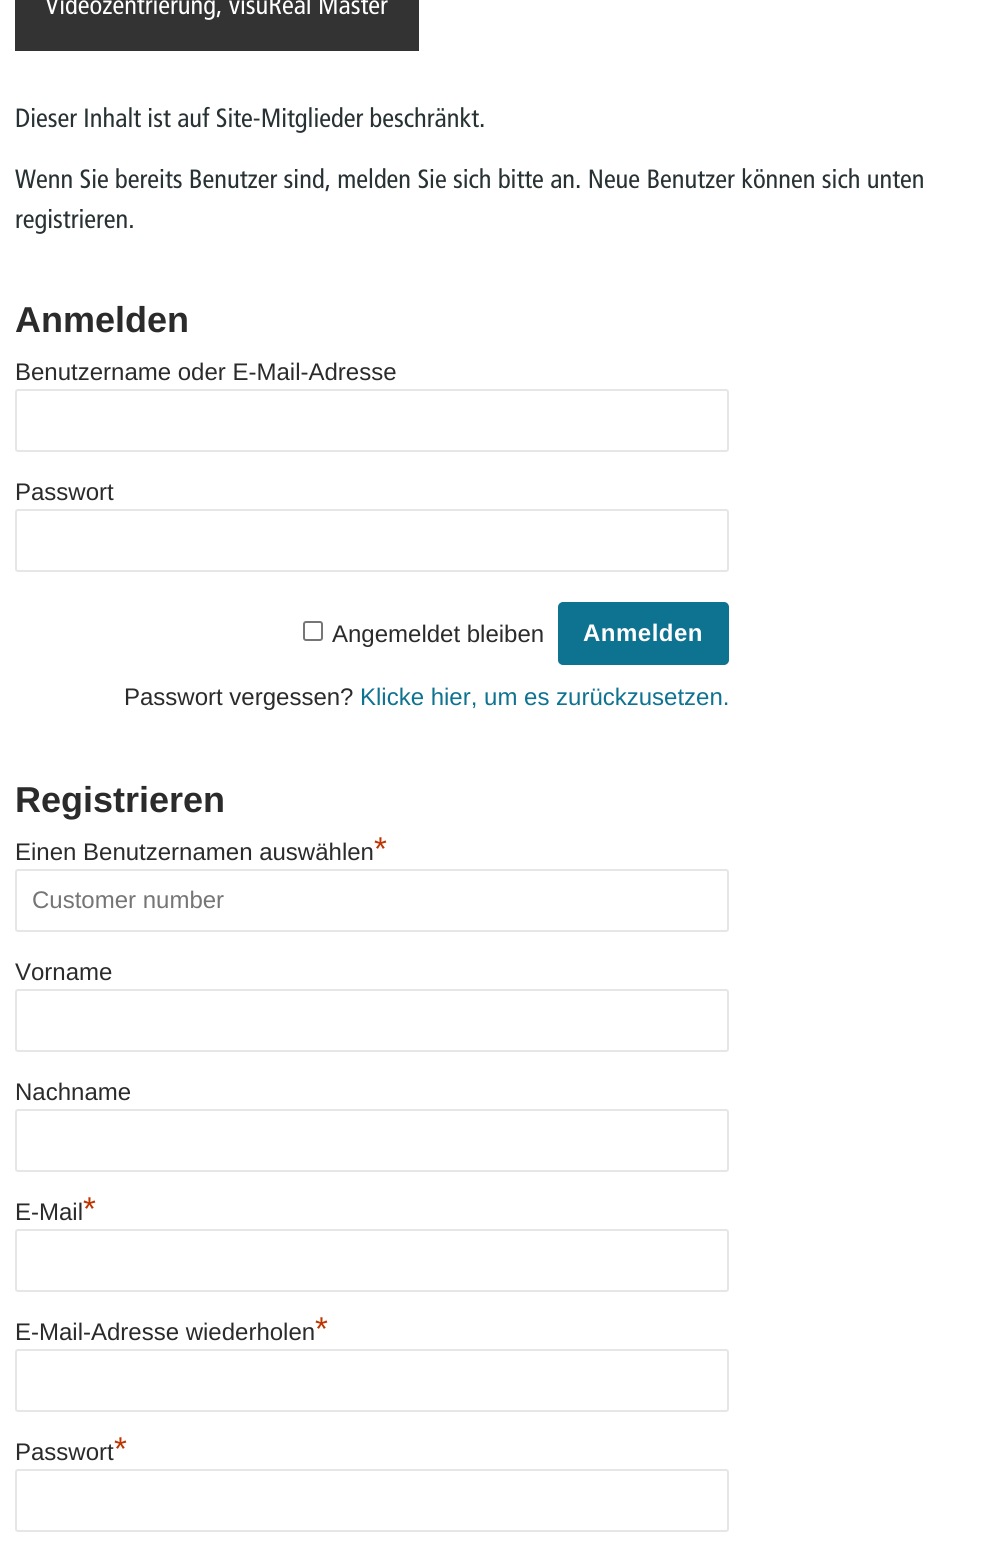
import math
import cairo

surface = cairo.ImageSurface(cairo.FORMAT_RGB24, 1002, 1555)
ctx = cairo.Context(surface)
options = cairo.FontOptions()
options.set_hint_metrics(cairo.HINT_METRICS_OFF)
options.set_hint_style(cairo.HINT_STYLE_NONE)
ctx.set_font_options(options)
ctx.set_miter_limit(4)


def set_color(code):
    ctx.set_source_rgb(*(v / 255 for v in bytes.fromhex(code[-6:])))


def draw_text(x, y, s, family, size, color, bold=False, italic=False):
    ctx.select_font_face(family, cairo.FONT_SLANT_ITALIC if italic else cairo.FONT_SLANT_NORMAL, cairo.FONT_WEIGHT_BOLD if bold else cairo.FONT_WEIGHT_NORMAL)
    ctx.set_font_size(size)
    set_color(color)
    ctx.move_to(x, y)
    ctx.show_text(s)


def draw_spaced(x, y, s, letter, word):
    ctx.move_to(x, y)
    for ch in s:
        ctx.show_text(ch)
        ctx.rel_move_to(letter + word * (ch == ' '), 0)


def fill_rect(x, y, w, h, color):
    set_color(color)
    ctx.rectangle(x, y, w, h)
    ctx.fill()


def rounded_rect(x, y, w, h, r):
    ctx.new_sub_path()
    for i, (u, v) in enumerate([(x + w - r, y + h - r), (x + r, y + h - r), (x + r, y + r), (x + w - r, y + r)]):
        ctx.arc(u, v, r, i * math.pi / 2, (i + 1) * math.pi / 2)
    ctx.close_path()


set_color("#ffffff")
ctx.paint()
fill_rect(15, 0, 404, 51, "#333333")
draw_text(45, 14, "Videozentrierung, visuReal Master", "Frutiger", 26.4, "#ffffff")
draw_text(15, 127, "Dieser Inhalt ist auf Site-Mitglieder beschränkt.", "Frutiger", 26.4, "#283133")
draw_text(15, 188, "Wenn Sie bereits Benutzer sind, melden Sie sich bitte an. Neue Benutzer können sich unten", "Frutiger", 26.4, "#283133")
draw_text(15, 228, "registrieren.", "Frutiger", 26.4, "#283133")
draw_text(15, 332, "Anmelden", "Liberation Sans", 36, "#2b2b2b", bold=True)
draw_text(15, 380, "Benutzername oder E-Mail-Adresse", "Liberation Sans", 24, "#2b2b2b")
rounded_rect(16, 390, 712, 61, 2)
set_color("#e6e6e6")
ctx.stroke()
draw_text(15, 500, "Passwort", "Liberation Sans", 24, "#2b2b2b")
rounded_rect(16, 510, 712, 61, 2)
set_color("#e6e6e6")
ctx.stroke()
rounded_rect(304, 622, 18, 18, 2)
set_color("#767676")
ctx.stroke()
draw_text(332, 642, "Angemeldet bleiben", "Liberation Sans", 24, "#2b2b2b")
set_color("#0e7291")
rounded_rect(559, 603, 169, 61, 4)
ctx.fill_preserve()
ctx.stroke()
ctx.select_font_face("Liberation Sans", cairo.FONT_SLANT_NORMAL, cairo.FONT_WEIGHT_BOLD)
set_color("#ffffff")
draw_spaced(583, 641, "Anmelden", 0.5, 0)
draw_text(124, 705, "Passwort vergessen?", "Liberation Sans", 24, "#2b2b2b")
draw_text(360, 705, "Klicke hier, um es zurückzusetzen.", "Liberation Sans", 24, "#0e7291")
draw_text(15, 812, "Registrieren", "Liberation Sans", 36, "#2b2b2b", bold=True)
draw_text(15, 860, "Einen Benutzernamen auswählen", "Liberation Sans", 24, "#2b2b2b")
draw_text(374, 860, "*", "Liberation Sans", 33, "#bd3500")
rounded_rect(16, 870, 712, 61, 2)
set_color("#e6e6e6")
ctx.stroke()
draw_text(32, 908, "Customer number", "Liberation Sans", 24, "#757575")
draw_text(15, 980, "Vorname", "Liberation Sans", 24, "#2b2b2b")
rounded_rect(16, 990, 712, 61, 2)
set_color("#e6e6e6")
ctx.stroke()
draw_text(15, 1100, "Nachname", "Liberation Sans", 24, "#2b2b2b")
rounded_rect(16, 1110, 712, 61, 2)
set_color("#e6e6e6")
ctx.stroke()
draw_text(15, 1220, "E-Mail", "Liberation Sans", 24, "#2b2b2b")
draw_text(83, 1220, "*", "Liberation Sans", 33, "#bd3500")
rounded_rect(16, 1230, 712, 61, 2)
set_color("#e6e6e6")
ctx.stroke()
draw_text(15, 1340, "E-Mail-Adresse wiederholen", "Liberation Sans", 24, "#2b2b2b")
draw_text(315, 1340, "*", "Liberation Sans", 33, "#bd3500")
rounded_rect(16, 1350, 712, 61, 2)
set_color("#e6e6e6")
ctx.stroke()
draw_text(15, 1460, "Passwort", "Liberation Sans", 24, "#2b2b2b")
draw_text(114, 1460, "*", "Liberation Sans", 33, "#bd3500")
rounded_rect(16, 1470, 712, 61, 2)
set_color("#e6e6e6")
ctx.stroke()
surface.write_to_png("output.png")
